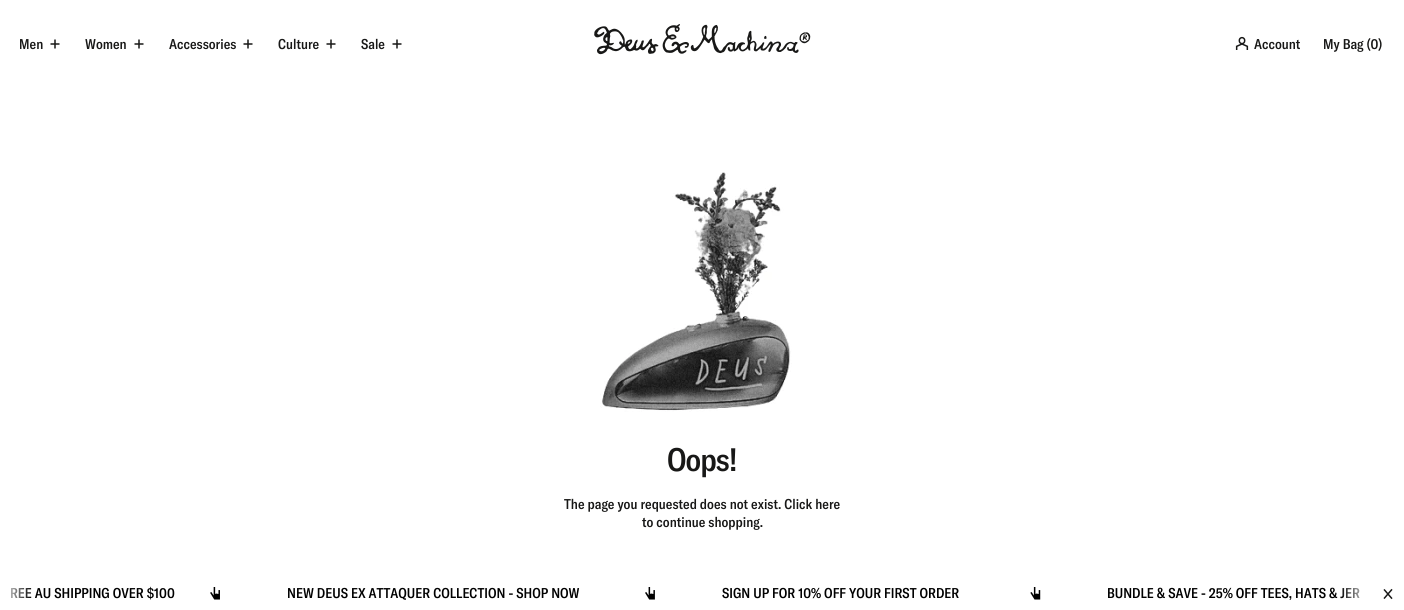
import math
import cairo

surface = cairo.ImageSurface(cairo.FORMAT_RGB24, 1404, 610)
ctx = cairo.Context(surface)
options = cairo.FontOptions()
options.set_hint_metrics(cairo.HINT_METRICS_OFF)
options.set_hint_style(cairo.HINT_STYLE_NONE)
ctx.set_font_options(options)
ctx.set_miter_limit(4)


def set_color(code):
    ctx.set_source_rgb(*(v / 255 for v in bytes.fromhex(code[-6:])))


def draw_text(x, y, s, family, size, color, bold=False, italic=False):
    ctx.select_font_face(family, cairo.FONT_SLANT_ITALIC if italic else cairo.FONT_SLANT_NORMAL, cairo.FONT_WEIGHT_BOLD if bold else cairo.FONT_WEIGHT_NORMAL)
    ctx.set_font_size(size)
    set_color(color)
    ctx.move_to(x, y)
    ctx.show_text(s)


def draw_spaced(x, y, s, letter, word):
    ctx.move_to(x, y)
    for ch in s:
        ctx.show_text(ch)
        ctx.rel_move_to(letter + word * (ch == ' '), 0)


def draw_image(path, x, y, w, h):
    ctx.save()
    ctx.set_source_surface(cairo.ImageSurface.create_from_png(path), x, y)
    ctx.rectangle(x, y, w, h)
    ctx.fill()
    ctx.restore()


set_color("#ffffff")
ctx.paint()
draw_text(19, 49, "Men", "GT America Medium", 14, "#181817")
ctx.new_path()
ctx.move_to(55, 39.5)
ctx.line_to(55, 48.5)
ctx.move_to(50.5, 44)
ctx.line_to(59.5, 44)
ctx.set_line_width(1.5)
ctx.stroke()
draw_text(85, 49, "Women", "GT America Medium", 14, "#181817")
ctx.new_path()
ctx.move_to(139, 39.5)
ctx.line_to(139, 48.5)
ctx.move_to(134.5, 44)
ctx.line_to(143.5, 44)
ctx.stroke()
draw_text(169, 49, "Accessories", "GT America Medium", 14, "#181817")
ctx.new_path()
ctx.move_to(248, 39.5)
ctx.line_to(248, 48.5)
ctx.move_to(243.5, 44)
ctx.line_to(252.5, 44)
ctx.stroke()
draw_text(278, 49, "Culture", "GT America Medium", 14, "#181817")
ctx.new_path()
ctx.move_to(331, 39.5)
ctx.line_to(331, 48.5)
ctx.move_to(326.5, 44)
ctx.line_to(335.5, 44)
ctx.stroke()
draw_text(361, 49, "Sale", "GT America Medium", 14, "#181817")
ctx.new_path()
ctx.move_to(397, 39.5)
ctx.line_to(397, 48.5)
ctx.move_to(392.5, 44)
ctx.line_to(401.5, 44)
ctx.stroke()
draw_image("assets/img1.png", 594, 24, 217, 31)
draw_image("assets/img2.png", 1235, 36, 14, 14)
draw_text(1254, 49, "Account", "GT America Medium", 14, "#181817")
draw_text(1323, 49, "My Bag (0)", "GT America Medium", 14, "#181817")
draw_image("assets/img3.png", 588, 152, 228, 272)
ctx.set_font_size(32)
draw_spaced(667, 471, "Oops!", -1, 0)
draw_text(564, 509, "The page you requested does not exist. Click here", "GT America Medium", 14, "#181817")
draw_text(642, 527, "to continue shopping.", "GT America Medium", 14, "#181817")
draw_text(10, 598, "REE AU SHIPPING OVER $100", "GT America Medium", 14, "#000000")
draw_image("assets/img4.png", 210, 587, 10, 13)
draw_text(287, 598, "NEW DEUS EX ATTAQUER COLLECTION - SHOP NOW", "GT America Medium", 14, "#000000")
draw_image("assets/img5.png", 645, 587, 10, 13)
draw_text(722, 598, "SIGN UP FOR 10% OFF YOUR FIRST ORDER", "GT America Medium", 14, "#000000")
draw_image("assets/img6.png", 1030, 587, 11, 13)
draw_text(1107, 598, "BUNDLE & SAVE - 25% OFF TEES, HATS & JER", "GT America Medium", 14, "#000000")
gradient = cairo.LinearGradient(0, 593, 32, 593)
gradient.add_color_stop_rgba(0, 1, 1, 1, 1)
gradient.add_color_stop_rgba(1, 1, 1, 1, 0)
ctx.set_source(gradient)
ctx.rectangle(10, 588, 21, 10)
ctx.fill()
gradient = cairo.LinearGradient(1372, 593, 1340, 593)
gradient.add_color_stop_rgba(0, 1, 1, 1, 1)
gradient.add_color_stop_rgba(1, 1, 1, 1, 0)
ctx.set_source(gradient)
ctx.rectangle(1341, 588, 19, 10)
ctx.fill()
draw_image("assets/img7.png", 1383, 588, 10, 12)
surface.write_to_png("output.png")
